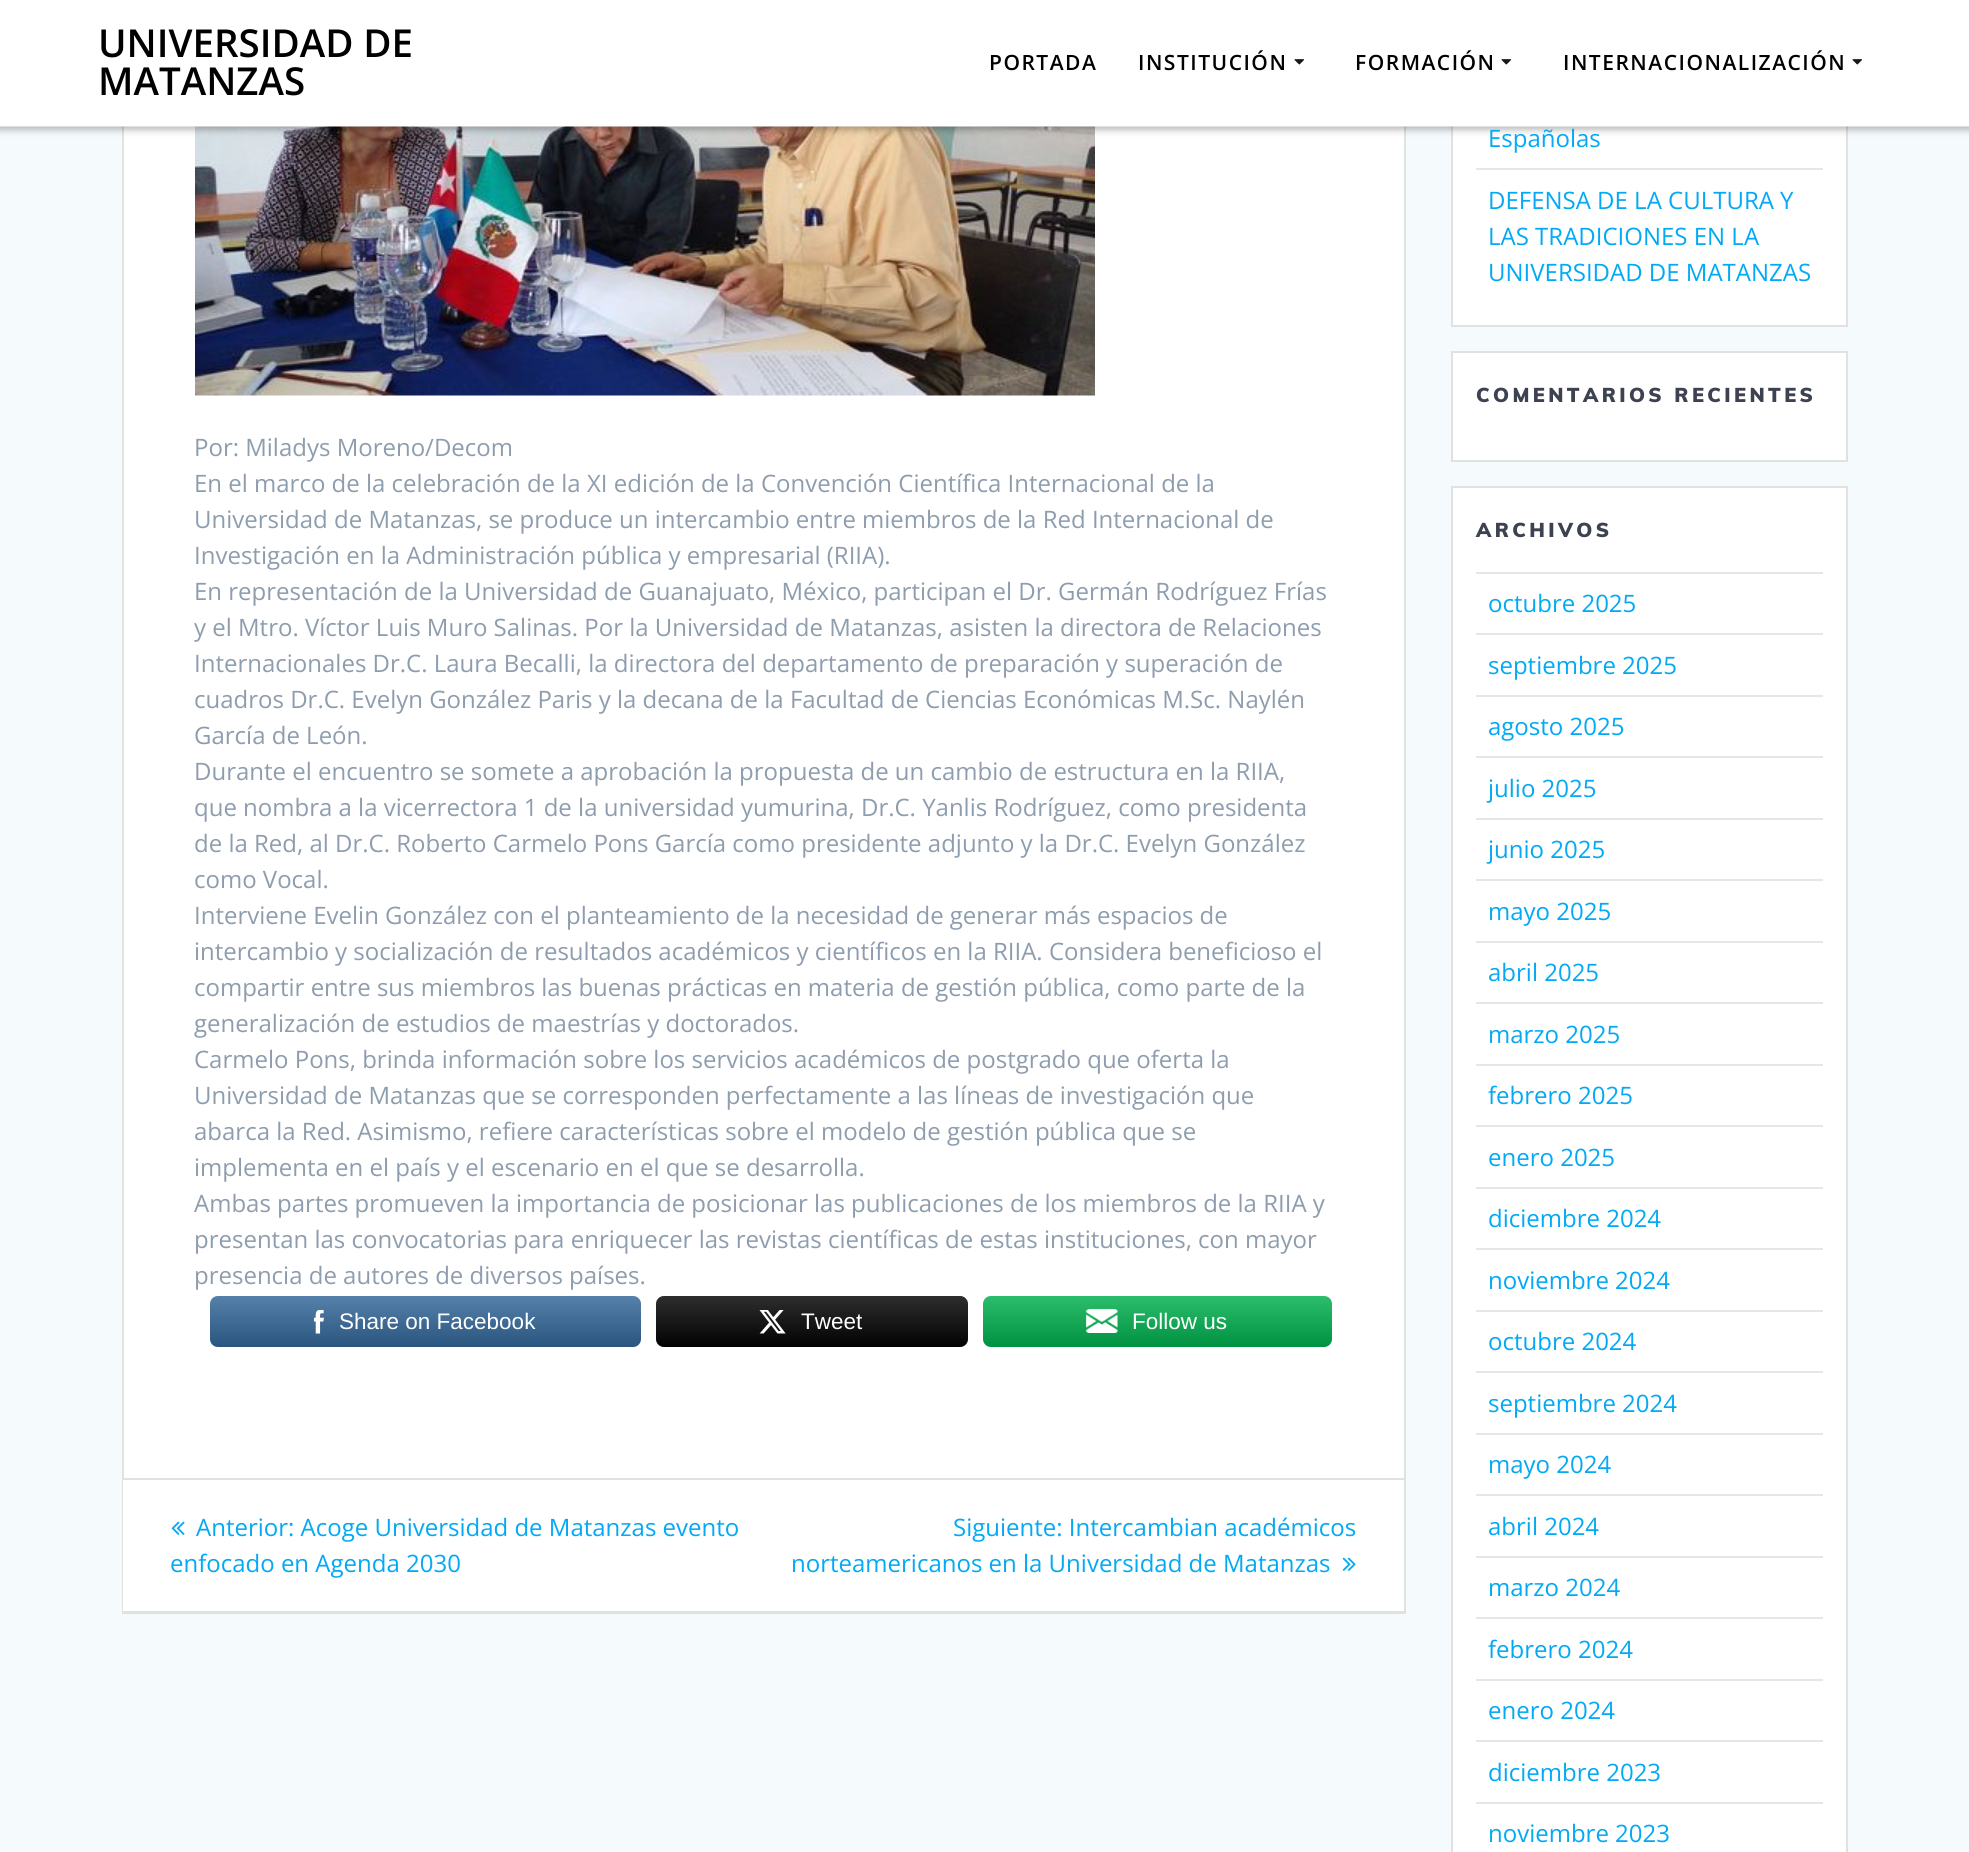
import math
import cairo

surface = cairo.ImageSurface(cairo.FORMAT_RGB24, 1969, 1852)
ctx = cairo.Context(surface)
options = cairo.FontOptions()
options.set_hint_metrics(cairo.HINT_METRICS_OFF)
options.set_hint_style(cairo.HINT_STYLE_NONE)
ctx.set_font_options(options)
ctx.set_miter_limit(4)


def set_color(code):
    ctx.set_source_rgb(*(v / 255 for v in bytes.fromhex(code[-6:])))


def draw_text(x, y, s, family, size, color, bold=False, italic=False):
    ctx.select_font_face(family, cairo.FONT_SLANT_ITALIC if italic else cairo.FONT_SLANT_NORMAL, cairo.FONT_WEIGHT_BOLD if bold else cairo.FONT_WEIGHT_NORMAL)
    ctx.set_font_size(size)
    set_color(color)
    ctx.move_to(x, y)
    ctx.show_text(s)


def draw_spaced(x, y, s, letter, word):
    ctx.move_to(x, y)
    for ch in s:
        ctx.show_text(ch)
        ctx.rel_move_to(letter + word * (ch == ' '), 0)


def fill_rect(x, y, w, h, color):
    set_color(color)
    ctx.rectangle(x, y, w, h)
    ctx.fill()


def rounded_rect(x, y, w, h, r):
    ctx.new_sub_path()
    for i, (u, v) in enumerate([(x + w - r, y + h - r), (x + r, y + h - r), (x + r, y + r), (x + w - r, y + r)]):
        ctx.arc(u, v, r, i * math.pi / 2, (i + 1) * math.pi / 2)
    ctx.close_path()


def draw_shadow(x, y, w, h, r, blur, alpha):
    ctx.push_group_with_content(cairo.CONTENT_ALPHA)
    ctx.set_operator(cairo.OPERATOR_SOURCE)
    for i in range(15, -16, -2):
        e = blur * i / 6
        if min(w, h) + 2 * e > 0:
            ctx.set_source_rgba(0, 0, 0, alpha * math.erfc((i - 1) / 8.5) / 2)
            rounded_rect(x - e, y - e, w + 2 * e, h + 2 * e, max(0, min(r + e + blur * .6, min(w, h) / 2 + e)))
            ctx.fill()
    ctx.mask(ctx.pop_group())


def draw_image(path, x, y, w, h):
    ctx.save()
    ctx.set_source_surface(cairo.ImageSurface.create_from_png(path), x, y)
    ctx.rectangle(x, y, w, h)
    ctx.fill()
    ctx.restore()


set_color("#f5fafd")
ctx.paint()
fill_rect(124, 126, 1280, 1352, "#ffffff")
ctx.rectangle(123, -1, 1282, 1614)
set_color("#e0e1e1")
ctx.stroke()
draw_image("assets/img2.png", 195, 126, 900, 270)
fill_rect(1453, 126, 393, 199, "#ffffff")
ctx.rectangle(1452, -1, 395, 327)
set_color("#e0e1e1")
ctx.stroke()
set_color("#000000")
draw_shadow(-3, -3, 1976, 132, 0, 4, 0.33)
fill_rect(0, 0, 1969, 126, "#ffffff")
ctx.set_source_rgba(1, 1, 1, 0.5)
ctx.rectangle(0, 126, 1969, 1)
ctx.fill()
draw_text(98, 57, "UNIVERSIDAD DE", "Open Sans SemiBold", 38.5, "#000000")
draw_text(98, 95, "MATANZAS", "Open Sans SemiBold", 38.5, "#000000")
ctx.set_font_size(21)
draw_spaced(989, 70, "PORTADA", 1.5, 0)
draw_spaced(1138, 70, "INSTITUCIÓN", 1.5, 0)
draw_image("assets/img1.png", 1294, 59, 10, 6)
draw_spaced(1355, 70, "FORMACIÓN", 1.5, 0)
draw_image("assets/img1.png", 1501, 59, 10, 6)
draw_spaced(1563, 70, "INTERNACIONALIZACIÓN", 1.5, 0)
draw_image("assets/img1.png", 1852, 59, 10, 6)
draw_text(194, 456, "Por: Miladys Moreno/Decom", "Open Sans", 24, "#8e9dae")
draw_text(194, 492, "En el marco de la celebración de la XI edición de la Convención Científica Internacional de la", "Open Sans", 24, "#8e9dae")
draw_text(194, 528, "Universidad de Matanzas, se produce un intercambio entre miembros de la Red Internacional de", "Open Sans", 24, "#8e9dae")
draw_text(194, 564, "Investigación en la Administración pública y empresarial (RIIA).", "Open Sans", 24, "#8e9dae")
draw_text(194, 600, "En representación de la Universidad de Guanajuato, México, participan el Dr. Germán Rodríguez Frías", "Open Sans", 24, "#8e9dae")
draw_text(194, 636, "y el Mtro. Víctor Luis Muro Salinas. Por la Universidad de Matanzas, asisten la directora de Relaciones", "Open Sans", 24, "#8e9dae")
draw_text(194, 672, "Internacionales Dr.C. Laura Becalli, la directora del departamento de preparación y superación de", "Open Sans", 24, "#8e9dae")
draw_text(194, 708, "cuadros Dr.C. Evelyn González Paris y la decana de la Facultad de Ciencias Económicas M.Sc. Naylén", "Open Sans", 24, "#8e9dae")
draw_text(194, 744, "García de León.", "Open Sans", 24, "#8e9dae")
draw_text(194, 780, "Durante el encuentro se somete a aprobación la propuesta de un cambio de estructura en la RIIA,", "Open Sans", 24, "#8e9dae")
draw_text(194, 816, "que nombra a la vicerrectora 1 de la universidad yumurina, Dr.C. Yanlis Rodríguez, como presidenta", "Open Sans", 24, "#8e9dae")
draw_text(194, 852, "de la Red, al Dr.C. Roberto Carmelo Pons García como presidente adjunto y la Dr.C. Evelyn González", "Open Sans", 24, "#8e9dae")
draw_text(194, 888, "como Vocal.", "Open Sans", 24, "#8e9dae")
draw_text(194, 924, "Interviene Evelin González con el planteamiento de la necesidad de generar más espacios de", "Open Sans", 24, "#8e9dae")
draw_text(194, 960, "intercambio y socialización de resultados académicos y científicos en la RIIA. Considera beneficioso el", "Open Sans", 24, "#8e9dae")
draw_text(194, 996, "compartir entre sus miembros las buenas prácticas en materia de gestión pública, como parte de la", "Open Sans", 24, "#8e9dae")
draw_text(194, 1032, "generalización de estudios de maestrías y doctorados.", "Open Sans", 24, "#8e9dae")
draw_text(194, 1068, "Carmelo Pons, brinda información sobre los servicios académicos de postgrado que oferta la", "Open Sans", 24, "#8e9dae")
draw_text(194, 1104, "Universidad de Matanzas que se corresponden perfectamente a las líneas de investigación que", "Open Sans", 24, "#8e9dae")
draw_text(194, 1140, "abarca la Red. Asimismo, refiere características sobre el modelo de gestión pública que se", "Open Sans", 24, "#8e9dae")
draw_text(194, 1176, "implementa en el país y el escenario en el que se desarrolla.", "Open Sans", 24, "#8e9dae")
draw_text(194, 1212, "Ambas partes promueven la importancia de posicionar las publicaciones de los miembros de la RIIA y", "Open Sans", 24, "#8e9dae")
draw_text(194, 1248, "presentan las convocatorias para enriquecer las revistas científicas de estas instituciones, con mayor", "Open Sans", 24, "#8e9dae")
draw_text(194, 1284, "presencia de autores de diversos países.", "Open Sans", 24, "#8e9dae")
set_color("#336699")
rounded_rect(210, 1296, 431, 51, 8)
ctx.fill()
gradient = cairo.LinearGradient(425, 1347, 425, 1296)
gradient.add_color_stop_rgba(0, 0, 0, 0, 0.17)
gradient.add_color_stop_rgba(1, 1, 1, 1, 0.17)
ctx.set_source(gradient)
rounded_rect(210, 1296, 431, 51, 8)
ctx.fill()
draw_image("assets/img3.png", 314, 1310, 10, 24)
draw_text(339, 1329, "Share on Facebook", "Liberation Sans", 22.5, "#ffffff")
set_color("#020202")
rounded_rect(656, 1296, 312, 51, 8)
ctx.fill()
gradient = cairo.LinearGradient(812, 1347, 812, 1296)
gradient.add_color_stop_rgba(0, 0, 0, 0, 0.17)
gradient.add_color_stop_rgba(1, 1, 1, 1, 0.17)
ctx.set_source(gradient)
rounded_rect(656, 1296, 312, 51, 8)
ctx.fill()
draw_image("assets/img4.png", 759, 1310, 27, 24)
draw_text(801, 1329, "Tweet", "Liberation Sans", 22.5, "#ffffff")
set_color("#00b04e")
rounded_rect(983, 1296, 349, 51, 8)
ctx.fill()
gradient = cairo.LinearGradient(1157, 1347, 1157, 1296)
gradient.add_color_stop_rgba(0, 0, 0, 0, 0.17)
gradient.add_color_stop_rgba(1, 1, 1, 1, 0.17)
ctx.set_source(gradient)
rounded_rect(983, 1296, 349, 51, 8)
ctx.fill()
draw_image("assets/img5.png", 1086, 1309, 32, 24)
draw_text(1132, 1329, "Follow us", "Liberation Sans", 22.5, "#ffffff")
fill_rect(123, 1480, 1281, 131, "#ffffff")
fill_rect(123, 1478, 1281, 2, "#e0e1e1")
fill_rect(123, 1611, 1281, 1, "#e0e1e1")
draw_image("assets/img6.png", 171, 1521, 14, 14)
draw_text(196, 1536, "Anterior: Acoge Universidad de Matanzas evento", "Open Sans", 24, "#03a9f4")
draw_text(170, 1572, "enfocado en Agenda 2030", "Open Sans", 24, "#03a9f4")
draw_text(953, 1536, "Siguiente: Intercambian académicos", "Open Sans", 24, "#03a9f4")
draw_text(791, 1572, "norteamericanos en la Universidad de Matanzas", "Open Sans", 24, "#03a9f4")
draw_image("assets/img7.png", 1342, 1557, 14, 14)
draw_text(1488, 147, "Españolas", "Open Sans", 24, "#03a9f4")
fill_rect(1476, 168, 347, 2, "#e6e6e6")
draw_text(1488, 209, "DEFENSA DE LA CULTURA Y", "Open Sans", 24, "#03a9f4")
draw_text(1488, 245, "LAS TRADICIONES EN LA", "Open Sans", 24, "#03a9f4")
draw_text(1488, 281, "UNIVERSIDAD DE MATANZAS", "Open Sans", 24, "#03a9f4")
set_color("#ffffff")
ctx.rectangle(1452, 352, 395, 109)
ctx.fill_preserve()
set_color("#e0e1e1")
ctx.stroke()
ctx.select_font_face("Muli Black")
ctx.set_font_size(19.9)
set_color("#3c424f")
draw_spaced(1476, 402, "COMENTARIOS RECIENTES", 3.4, 0)
set_color("#ffffff")
ctx.rectangle(1452, 487, 395, 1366)
ctx.fill_preserve()
set_color("#e0e1e1")
ctx.stroke()
set_color("#3c424f")
draw_spaced(1476, 537, "ARCHIVOS", 3.4, 0)
fill_rect(1476, 572, 347, 2, "#e6e6e6")
draw_text(1488, 612, "octubre 2025", "Open Sans", 24, "#03a9f4")
fill_rect(1476, 633, 347, 2, "#e6e6e6")
draw_text(1488, 674, "septiembre 2025", "Open Sans", 24, "#03a9f4")
fill_rect(1476, 695, 347, 2, "#e6e6e6")
draw_text(1488, 735, "agosto 2025", "Open Sans", 24, "#03a9f4")
fill_rect(1476, 756, 347, 2, "#e6e6e6")
draw_text(1488, 797, "julio 2025", "Open Sans", 24, "#03a9f4")
fill_rect(1476, 818, 347, 2, "#e6e6e6")
draw_text(1488, 858, "junio 2025", "Open Sans", 24, "#03a9f4")
fill_rect(1476, 879, 347, 2, "#e6e6e6")
draw_text(1488, 920, "mayo 2025", "Open Sans", 24, "#03a9f4")
fill_rect(1476, 941, 347, 2, "#e6e6e6")
draw_text(1488, 981, "abril 2025", "Open Sans", 24, "#03a9f4")
fill_rect(1476, 1002, 347, 2, "#e6e6e6")
draw_text(1488, 1043, "marzo 2025", "Open Sans", 24, "#03a9f4")
fill_rect(1476, 1064, 347, 2, "#e6e6e6")
draw_text(1488, 1104, "febrero 2025", "Open Sans", 24, "#03a9f4")
fill_rect(1476, 1125, 347, 2, "#e6e6e6")
draw_text(1488, 1166, "enero 2025", "Open Sans", 24, "#03a9f4")
fill_rect(1476, 1187, 347, 2, "#e6e6e6")
draw_text(1488, 1227, "diciembre 2024", "Open Sans", 24, "#03a9f4")
fill_rect(1476, 1248, 347, 2, "#e6e6e6")
draw_text(1488, 1289, "noviembre 2024", "Open Sans", 24, "#03a9f4")
fill_rect(1476, 1310, 347, 2, "#e6e6e6")
draw_text(1488, 1350, "octubre 2024", "Open Sans", 24, "#03a9f4")
fill_rect(1476, 1371, 347, 2, "#e6e6e6")
draw_text(1488, 1412, "septiembre 2024", "Open Sans", 24, "#03a9f4")
fill_rect(1476, 1433, 347, 2, "#e6e6e6")
draw_text(1488, 1473, "mayo 2024", "Open Sans", 24, "#03a9f4")
fill_rect(1476, 1494, 347, 2, "#e6e6e6")
draw_text(1488, 1535, "abril 2024", "Open Sans", 24, "#03a9f4")
fill_rect(1476, 1556, 347, 2, "#e6e6e6")
draw_text(1488, 1596, "marzo 2024", "Open Sans", 24, "#03a9f4")
fill_rect(1476, 1617, 347, 2, "#e6e6e6")
draw_text(1488, 1658, "febrero 2024", "Open Sans", 24, "#03a9f4")
fill_rect(1476, 1679, 347, 2, "#e6e6e6")
draw_text(1488, 1719, "enero 2024", "Open Sans", 24, "#03a9f4")
fill_rect(1476, 1740, 347, 2, "#e6e6e6")
draw_text(1488, 1781, "diciembre 2023", "Open Sans", 24, "#03a9f4")
fill_rect(1476, 1802, 347, 2, "#e6e6e6")
draw_text(1488, 1842, "noviembre 2023", "Open Sans", 24, "#03a9f4")
surface.write_to_png("output.png")
